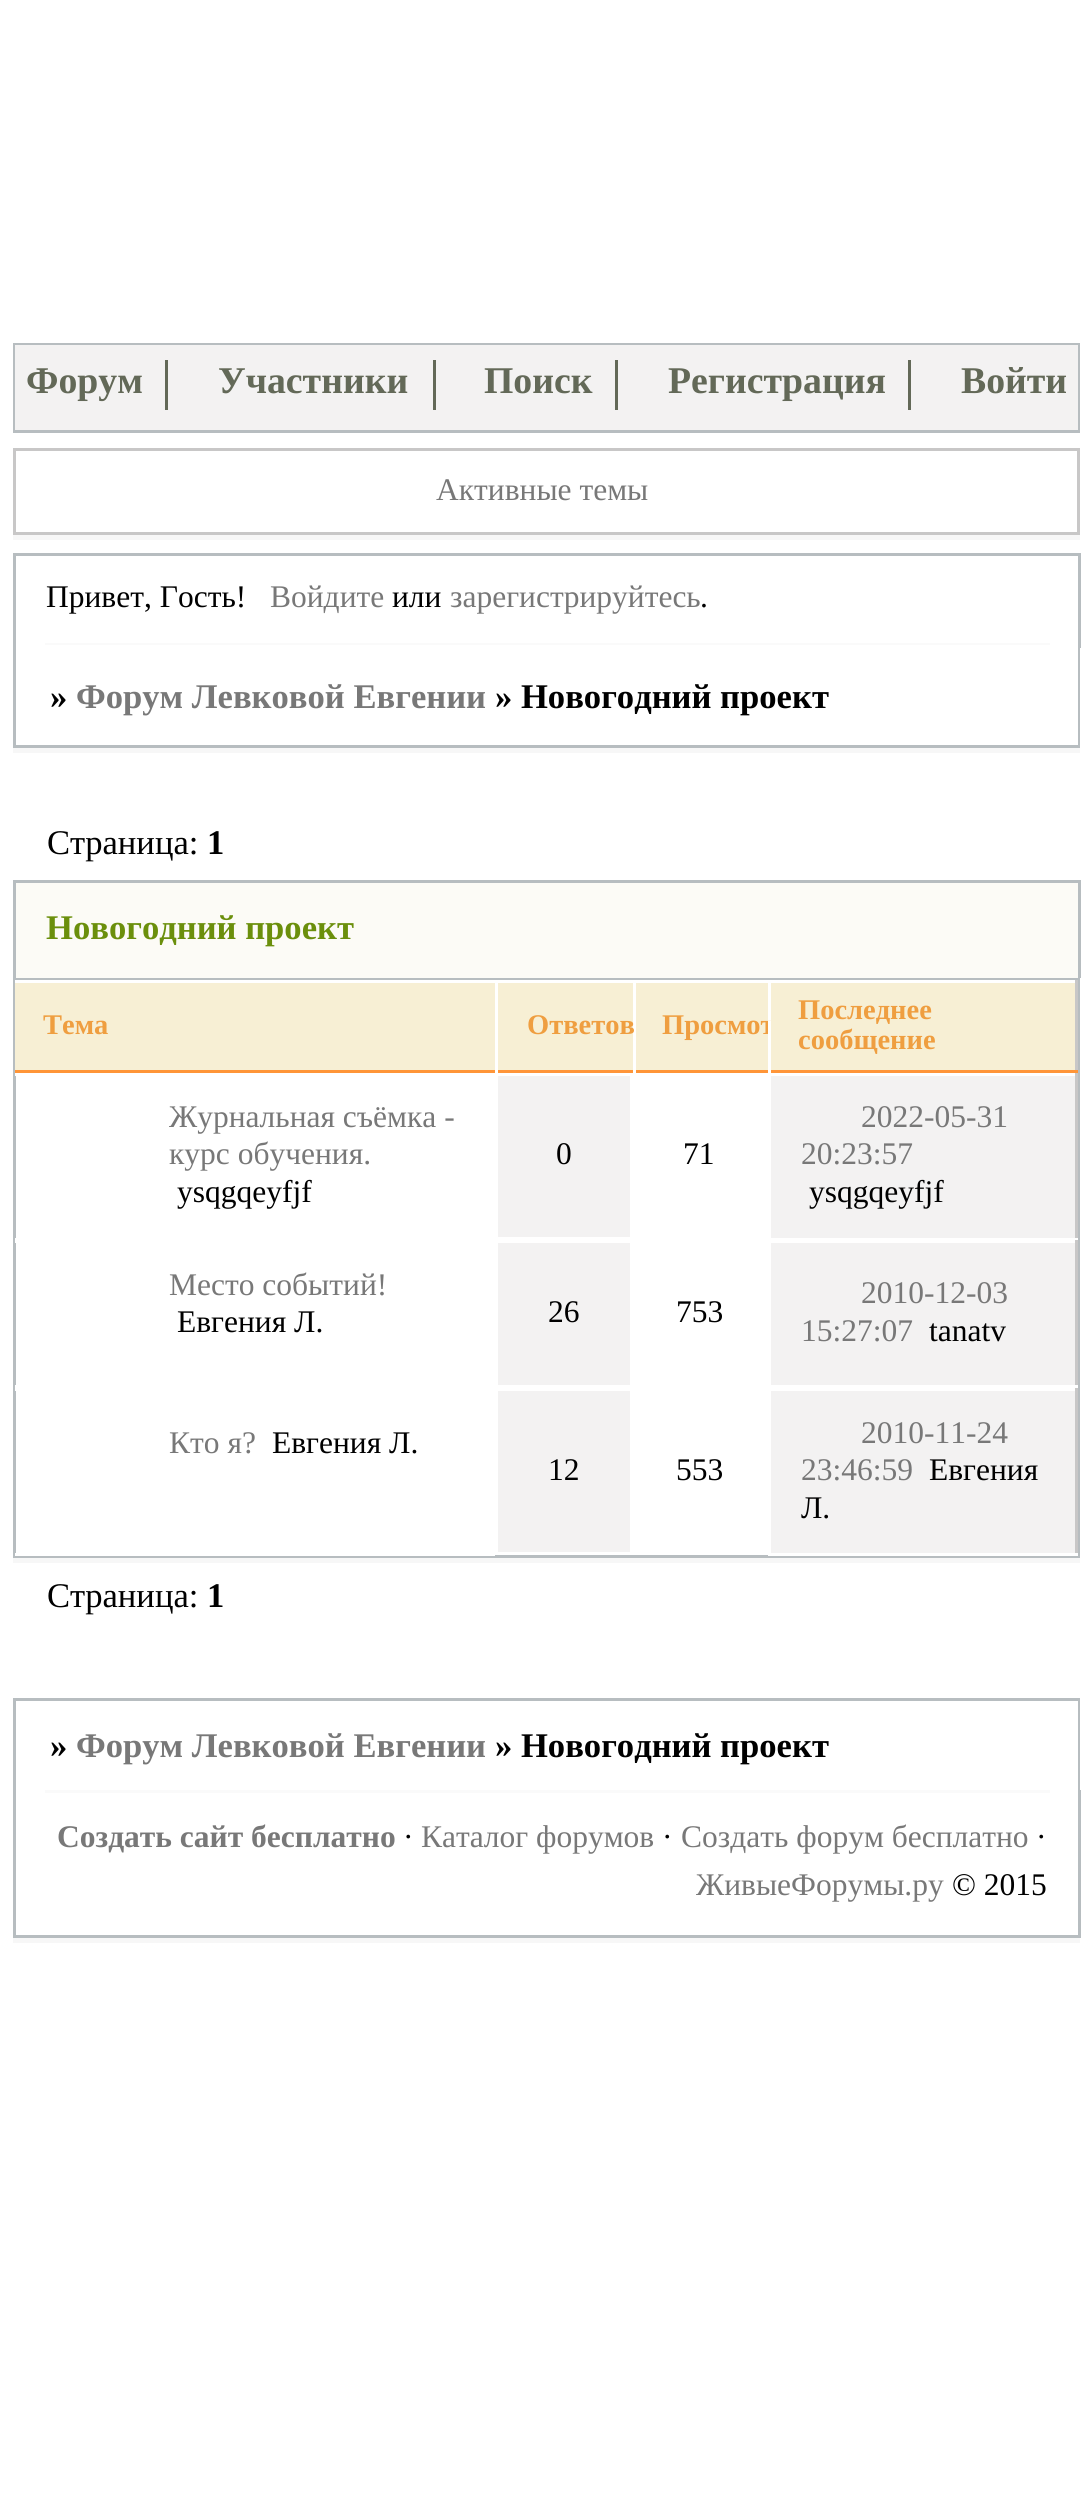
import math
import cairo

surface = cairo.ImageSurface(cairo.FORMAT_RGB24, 1088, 2513)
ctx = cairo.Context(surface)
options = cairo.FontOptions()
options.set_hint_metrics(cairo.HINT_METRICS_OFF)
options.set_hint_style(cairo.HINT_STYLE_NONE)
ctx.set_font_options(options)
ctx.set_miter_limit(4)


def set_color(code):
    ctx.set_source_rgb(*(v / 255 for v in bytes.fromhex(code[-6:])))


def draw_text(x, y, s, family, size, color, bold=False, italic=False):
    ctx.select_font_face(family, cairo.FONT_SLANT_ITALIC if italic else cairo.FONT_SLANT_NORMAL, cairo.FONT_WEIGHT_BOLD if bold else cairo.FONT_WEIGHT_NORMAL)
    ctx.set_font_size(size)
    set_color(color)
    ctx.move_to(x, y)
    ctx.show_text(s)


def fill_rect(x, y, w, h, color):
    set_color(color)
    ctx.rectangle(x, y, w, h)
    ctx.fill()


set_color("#ffffff")
ctx.paint()
ctx.rectangle(14.5, 344.5, 1064, 87)
set_color("#b7bdc0")
ctx.set_line_width(3)
ctx.stroke()
fill_rect(15, 345, 1063, 85, "#f3f2f2")
draw_text(26, 393, "Форум", "Liberation Serif", 37.75, "#636958", bold=True)
draw_text(218, 393, "Участники", "Liberation Serif", 37.75, "#636958", bold=True)
fill_rect(165, 360, 3, 50, "#636958")
draw_text(484, 393, "Поиск", "Liberation Serif", 37.75, "#636958", bold=True)
fill_rect(433, 360, 3, 50, "#636958")
draw_text(668, 393, "Регистрация", "Liberation Serif", 37.75, "#636958", bold=True)
fill_rect(615, 360, 3, 50, "#636958")
draw_text(961, 393, "Войти", "Liberation Serif", 37.75, "#636958", bold=True)
fill_rect(908, 360, 3, 50, "#636958")
fill_rect(13, 535, 1067, 5, "#f7f7f7")
ctx.rectangle(14.5, 449.5, 1064, 84)
set_color("#c8c7c7")
ctx.stroke()
draw_text(436, 500, "Активные темы", "Liberation Serif", 31.5, "#787878")
fill_rect(13, 553, 1067, 3, "#b7bdc0")
fill_rect(1078, 553, 3, 95, "#b7bdc0")
fill_rect(13, 553, 3, 95, "#b7bdc0")
draw_text(46, 607, "Привет, Гость!", "Liberation Serif", 31.5, "#000000")
draw_text(270, 607, "Войдите", "Liberation Serif", 31.5, "#787878")
draw_text(392, 607, "или", "Liberation Serif", 31.5, "#000000")
draw_text(450, 607, "зарегистрируйтесь", "Liberation Serif", 31.5, "#787878")
draw_text(700, 607, ".", "Liberation Serif", 31.5, "#000000")
fill_rect(45, 643, 1005, 2, "#fafafa")
fill_rect(13, 748, 1067, 5, "#f7f7f7")
fill_rect(1078, 643, 2, 105, "#b7bdc0")
fill_rect(13, 745, 1067, 3, "#b7bdc0")
fill_rect(13, 643, 3, 105, "#b7bdc0")
draw_text(50, 708, "»", "Liberation Serif", 34.6, "#000000", bold=True)
draw_text(76, 708, "Форум Левковой Евгении", "Liberation Serif", 34.6, "#787878", bold=True)
draw_text(495, 708, "» Новогодний проект", "Liberation Serif", 34.6, "#000000", bold=True)
draw_text(47, 854, "Страница:", "Liberation Serif", 34.6, "#000000")
draw_text(207, 854, "1", "Liberation Serif", 34.6, "#000000", bold=True)
fill_rect(16, 883, 1062, 95, "#fcfbf6")
fill_rect(13, 880, 1067, 3, "#b7bdc0")
fill_rect(1078, 880, 3, 98, "#b7bdc0")
fill_rect(13, 880, 3, 98, "#b7bdc0")
draw_text(46, 939, "Новогодний проект", "Liberation Serif", 34.6, "#6b8f0c", bold=True)
fill_rect(13, 1558, 1067, 5, "#f7f7f7")
ctx.rectangle(14.5, 979.5, 1064, 577)
set_color("#b7bdc0")
ctx.stroke()
fill_rect(15, 983, 480, 87, "#f7efd4")
fill_rect(15, 980, 480, 3, "#ffffff")
draw_text(43, 1034, "Тема", "Liberation Serif", 28.5, "#ef9e40", bold=True)
fill_rect(498, 983, 135, 87, "#f7efd4")
fill_rect(495, 980, 273, 1, "#ffffff")
fill_rect(15, 1070, 753, 3, "#ff9538")
fill_rect(495, 1070, 3, 3, "#ffffff")
draw_text(527, 1034, "Ответов", "Liberation Serif", 28.5, "#ef9e40", bold=True)
fill_rect(636, 983, 132, 87, "#f7efd4")
fill_rect(633, 1070, 3, 3, "#ffffff")
draw_text(662, 1034, "Просмот", "Liberation Serif", 28.5, "#ef9e40", bold=True)
fill_rect(771, 983, 304, 87, "#f7efd4")
fill_rect(768, 980, 310, 3, "#ffffff")
fill_rect(1075, 980, 3, 93, "#c8c7c7")
fill_rect(768, 1070, 310, 3, "#ff9538")
fill_rect(768, 1021, 3, 52, "#ffffff")
draw_text(798, 1019, "Последнее", "Liberation Serif", 28.5, "#ef9e40", bold=True)
draw_text(798, 1049, "сообщение", "Liberation Serif", 28.5, "#ef9e40", bold=True)
fill_rect(15, 1073, 1, 3, "#ffffff")
fill_rect(15, 1238, 1, 5, "#ffffff")
draw_text(169, 1127, "Журнальная съёмка -", "Liberation Serif", 31.5, "#787878")
draw_text(169, 1164, "курс обучения.", "Liberation Serif", 31.5, "#787878")
draw_text(177, 1202, "ysqgqeyfjf", "Liberation Serif", 31.5, "#000000")
fill_rect(498, 1076, 132, 161, "#f3f2f2")
draw_text(556, 1164, "0", "Liberation Serif", 31.5, "#000000")
draw_text(683, 1164, "71", "Liberation Serif", 31.5, "#000000")
fill_rect(771, 1076, 304, 162, "#f3f2f2")
fill_rect(1077, 1073, 1, 3, "#ffffff")
fill_rect(1075, 1073, 3, 167, "#c8c7c7")
fill_rect(1075, 1238, 3, 2, "#ffffff")
draw_text(861, 1127, "2022-05-31", "Liberation Serif", 31.5, "#787878")
draw_text(801, 1164, "20:23:57", "Liberation Serif", 31.5, "#787878")
draw_text(809, 1202, "ysqgqeyfjf", "Liberation Serif", 31.5, "#000000")
fill_rect(15, 1385, 1, 6, "#ffffff")
draw_text(169, 1295, "Место событий!", "Liberation Serif", 31.5, "#787878")
draw_text(177, 1332, "Евгения Л.", "Liberation Serif", 31.5, "#000000")
fill_rect(498, 1243, 132, 142, "#f3f2f2")
draw_text(548, 1322, "26", "Liberation Serif", 31.5, "#000000")
draw_text(676, 1322, "753", "Liberation Serif", 31.5, "#000000")
fill_rect(771, 1243, 304, 142, "#f3f2f2")
fill_rect(1077, 1240, 1, 3, "#ffffff")
fill_rect(1075, 1240, 3, 148, "#c8c7c7")
fill_rect(1075, 1385, 3, 3, "#ffffff")
draw_text(861, 1303, "2010-12-03", "Liberation Serif", 31.5, "#787878")
draw_text(801, 1341, "15:27:07", "Liberation Serif", 31.5, "#787878")
draw_text(929, 1341, "tanatv", "Liberation Serif", 31.5, "#000000")
fill_rect(15, 1553, 480, 3, "#ffffff")
draw_text(169, 1453, "Кто я?", "Liberation Serif", 31.5, "#787878")
draw_text(272, 1453, "Евгения Л.", "Liberation Serif", 31.5, "#000000")
fill_rect(771, 1391, 304, 162, "#f3f2f2")
fill_rect(1077, 1388, 1, 3, "#ffffff")
fill_rect(1075, 1388, 3, 167, "#c8c7c7")
fill_rect(768, 1553, 310, 3, "#ffffff")
draw_text(861, 1443, "2010-11-24", "Liberation Serif", 31.5, "#787878")
draw_text(801, 1480, "23:46:59", "Liberation Serif", 31.5, "#787878")
draw_text(929, 1480, "Евгения", "Liberation Serif", 31.5, "#000000")
draw_text(801, 1518, "Л.", "Liberation Serif", 31.5, "#000000")
fill_rect(498, 1391, 132, 161, "#f3f2f2")
draw_text(548, 1480, "12", "Liberation Serif", 31.5, "#000000")
draw_text(676, 1480, "553", "Liberation Serif", 31.5, "#000000")
draw_text(47, 1607, "Страница:", "Liberation Serif", 34.6, "#000000")
draw_text(207, 1607, "1", "Liberation Serif", 34.6, "#000000", bold=True)
fill_rect(13, 1698, 1067, 3, "#b7bdc0")
fill_rect(1078, 1790, 3, 148, "#b7bdc0")
fill_rect(1078, 1698, 2, 97, "#b7bdc0")
fill_rect(13, 1935, 1067, 3, "#b7bdc0")
fill_rect(13, 1790, 3, 148, "#b7bdc0")
fill_rect(13, 1698, 3, 97, "#b7bdc0")
draw_text(50, 1757, "»", "Liberation Serif", 34.6, "#000000", bold=True)
draw_text(76, 1757, "Форум Левковой Евгении", "Liberation Serif", 34.6, "#787878", bold=True)
draw_text(495, 1757, "» Новогодний проект", "Liberation Serif", 34.6, "#000000", bold=True)
fill_rect(45, 1790, 1005, 3, "#fafafa")
fill_rect(13, 1938, 1067, 5, "#f7f7f7")
draw_text(57, 1847, "Создать сайт бесплатно", "Liberation Serif", 31.5, "#787878", bold=True)
draw_text(403, 1847, "·", "Liberation Serif", 31.5, "#000000")
draw_text(421, 1847, "Каталог форумов", "Liberation Serif", 31.5, "#787878")
draw_text(662, 1847, "·", "Liberation Serif", 31.5, "#000000")
draw_text(681, 1847, "Создать форум бесплатно", "Liberation Serif", 31.5, "#787878")
draw_text(1036, 1847, "·", "Liberation Serif", 31.5, "#000000")
draw_text(696, 1895, "ЖивыеФорумы.ру", "Liberation Serif", 31.5, "#787878")
draw_text(952, 1895, "© 2015", "Liberation Serif", 31.5, "#000000")
surface.write_to_png("output.png")
